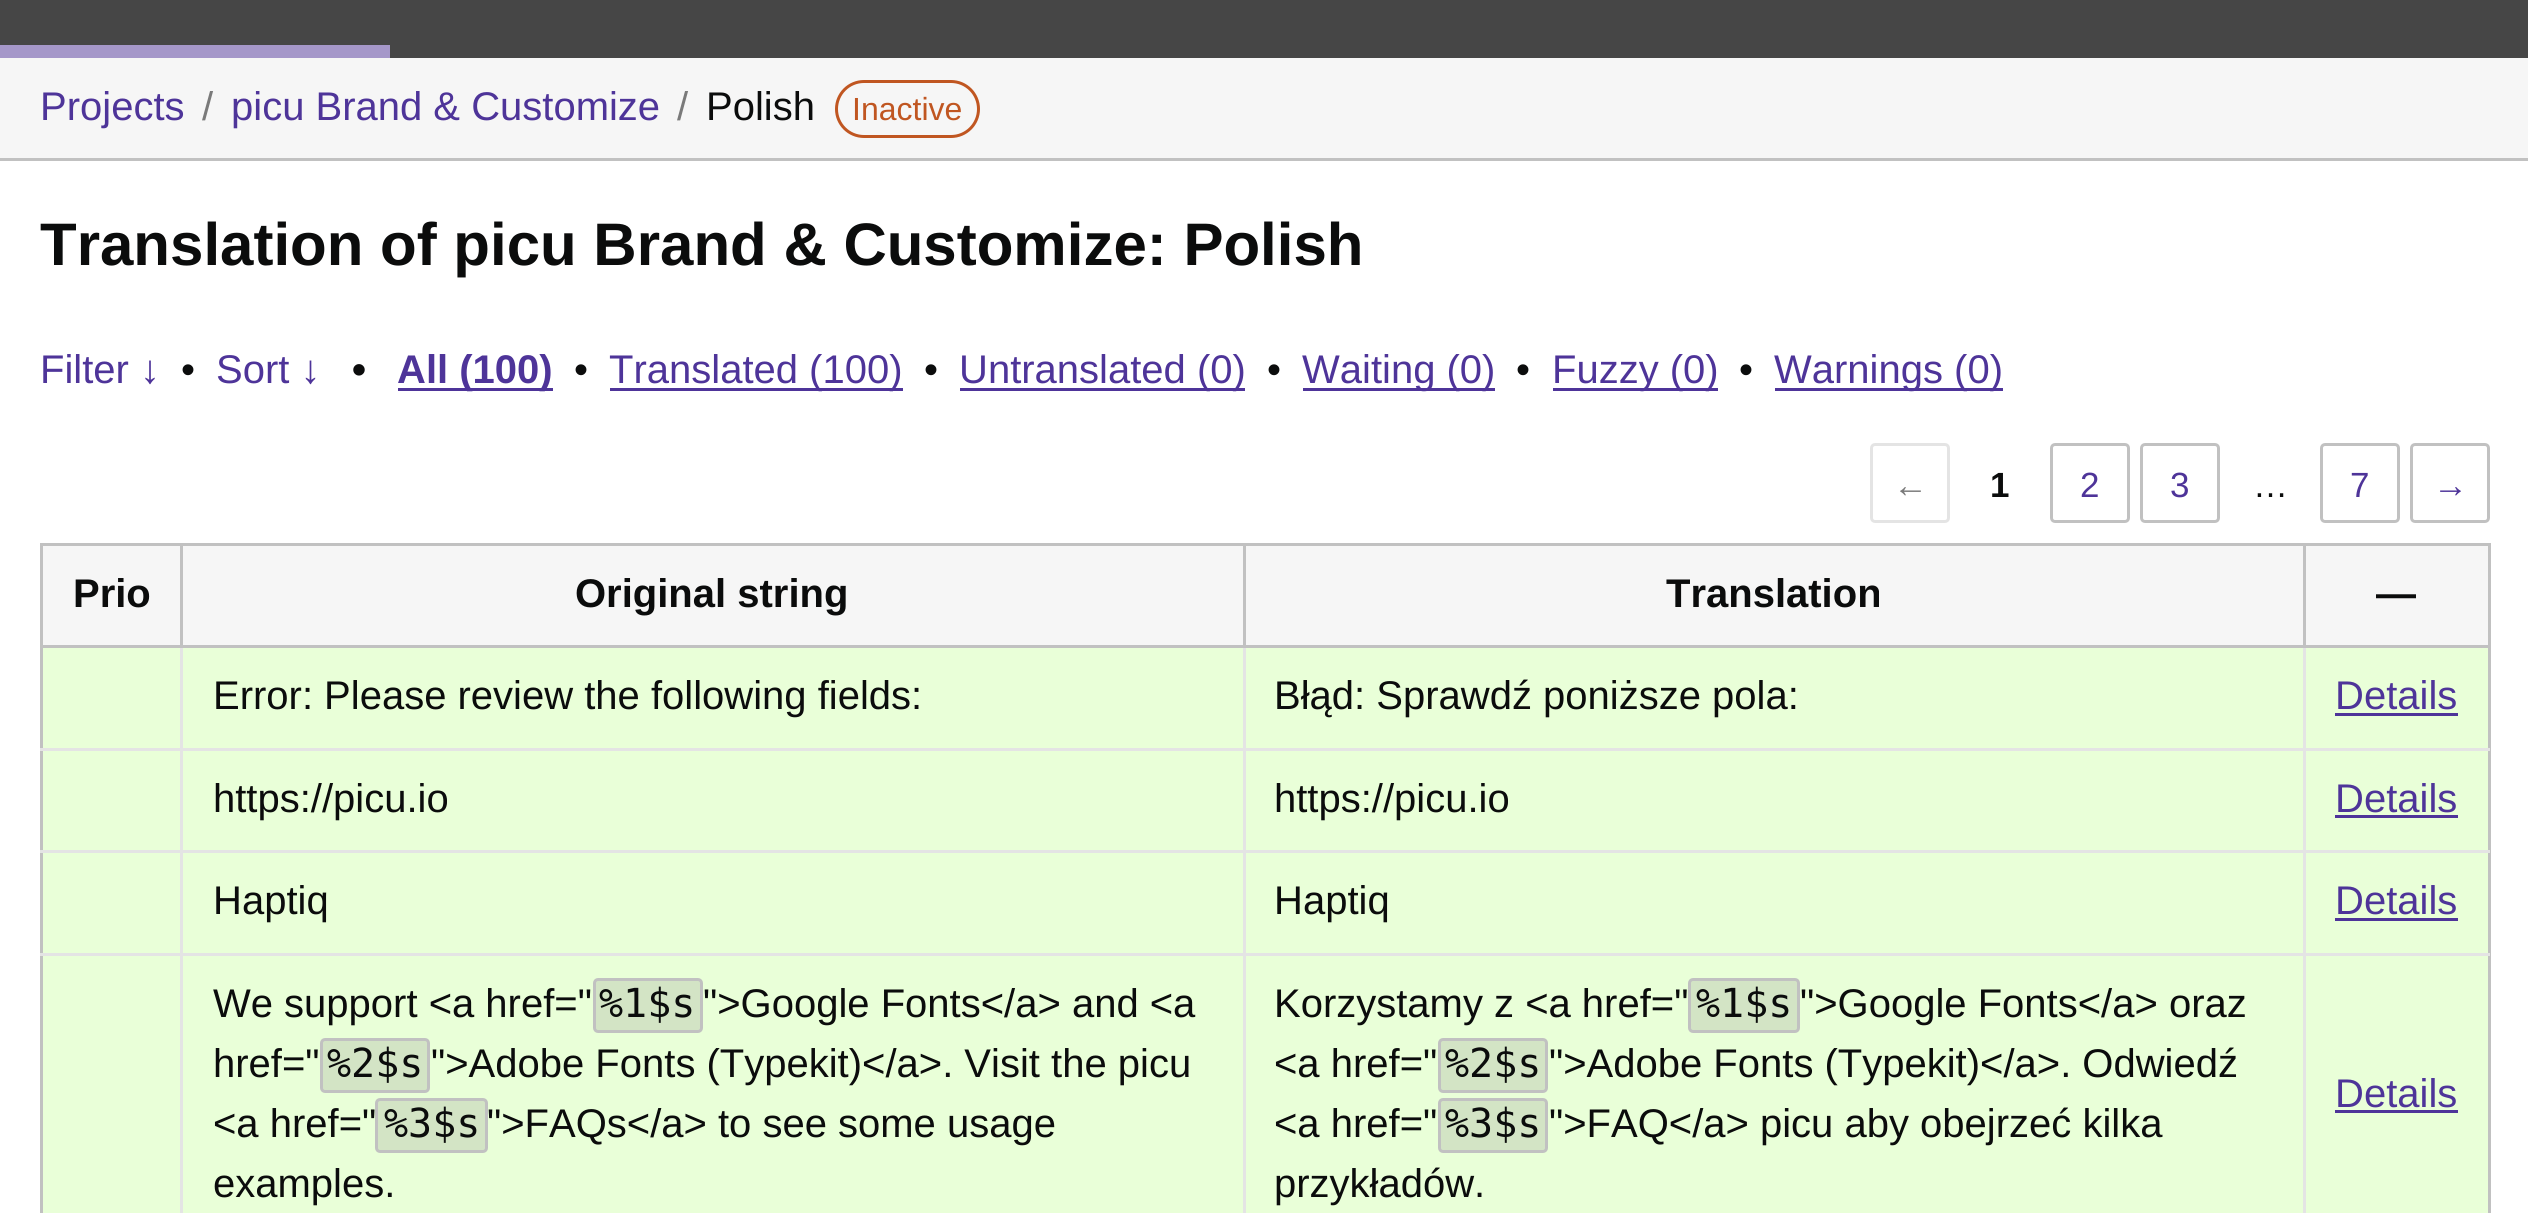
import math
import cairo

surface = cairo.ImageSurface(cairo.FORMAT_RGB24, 2528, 1213)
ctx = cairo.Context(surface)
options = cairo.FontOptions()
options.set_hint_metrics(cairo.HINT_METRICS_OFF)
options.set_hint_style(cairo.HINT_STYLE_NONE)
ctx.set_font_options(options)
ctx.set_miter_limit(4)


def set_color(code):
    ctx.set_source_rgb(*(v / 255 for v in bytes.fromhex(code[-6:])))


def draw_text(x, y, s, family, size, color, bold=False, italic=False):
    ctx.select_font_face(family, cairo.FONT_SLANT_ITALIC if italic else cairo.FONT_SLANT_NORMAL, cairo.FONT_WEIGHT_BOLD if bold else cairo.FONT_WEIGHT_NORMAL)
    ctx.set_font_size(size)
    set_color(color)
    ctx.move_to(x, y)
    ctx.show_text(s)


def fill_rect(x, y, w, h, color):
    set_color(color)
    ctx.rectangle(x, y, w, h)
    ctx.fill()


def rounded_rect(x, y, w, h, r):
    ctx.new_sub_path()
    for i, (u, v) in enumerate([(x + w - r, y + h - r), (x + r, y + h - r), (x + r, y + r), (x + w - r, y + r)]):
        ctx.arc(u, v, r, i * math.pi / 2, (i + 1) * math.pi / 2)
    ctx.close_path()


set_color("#ffffff")
ctx.paint()
fill_rect(0, 0, 2528, 58, "#464646")
fill_rect(0, 45, 390, 13, "#a597c9")
fill_rect(0, 58, 2528, 100, "#f6f6f6")
fill_rect(0, 158, 2528, 3, "#c1c1c1")
draw_text(40, 120, "Projects", "Liberation Sans", 40, "#4e3499")
draw_text(202, 120, "/", "Liberation Sans", 40, "#7a7a7a")
draw_text(231, 120, "picu Brand & Customize", "Liberation Sans", 40, "#4e3499")
draw_text(677, 120, "/", "Liberation Sans", 40, "#7a7a7a")
draw_text(706, 120, "Polish", "Liberation Sans", 40, "#0b0c0c")
rounded_rect(836.5, 81.5, 142, 55, 27.5)
set_color("#c05621")
ctx.set_line_width(3)
ctx.stroke()
draw_text(852, 120, "Inactive", "Liberation Sans", 32, "#c05621")
draw_text(40, 265, "Translation of picu Brand & Customize: Polish", "Liberation Sans", 60, "#0b0c0c", bold=True)
draw_text(40, 383, "Filter ↓", "Liberation Sans", 40, "#4e3499")
draw_text(181, 383, "•", "Liberation Sans", 40, "#0b0c0c")
draw_text(216, 383, "Sort ↓", "Liberation Sans", 40, "#4e3499")
draw_text(352, 383, "•", "Liberation Sans", 40, "#0b0c0c", bold=True)
fill_rect(398, 388, 155, 3, "#4e3499")
draw_text(397, 383, "All (100)", "Liberation Sans", 40, "#4e3499", bold=True)
draw_text(574, 383, "•", "Liberation Sans", 40, "#0b0c0c")
fill_rect(610, 388, 293, 3, "#4e3499")
draw_text(609, 383, "Translated (100)", "Liberation Sans", 40, "#4e3499")
draw_text(924, 383, "•", "Liberation Sans", 40, "#0b0c0c")
fill_rect(960, 388, 285, 3, "#4e3499")
draw_text(959, 383, "Untranslated (0)", "Liberation Sans", 40, "#4e3499")
draw_text(1267, 383, "•", "Liberation Sans", 40, "#0b0c0c")
fill_rect(1303, 388, 192, 3, "#4e3499")
draw_text(1302, 383, "Waiting (0)", "Liberation Sans", 40, "#4e3499")
draw_text(1516, 383, "•", "Liberation Sans", 40, "#0b0c0c")
fill_rect(1553, 388, 165, 3, "#4e3499")
draw_text(1552, 383, "Fuzzy (0)", "Liberation Sans", 40, "#4e3499")
draw_text(1739, 383, "•", "Liberation Sans", 40, "#0b0c0c")
fill_rect(1775, 388, 228, 3, "#4e3499")
draw_text(1774, 383, "Warnings (0)", "Liberation Sans", 40, "#4e3499")
rounded_rect(1871.5, 444.5, 77, 77, 3.5)
set_color("#e4e4e4")
ctx.stroke()
draw_text(1893, 497, "←", "Liberation Sans", 35, "#7a7a7a")
draw_text(1990, 497, "1", "Liberation Sans", 35, "#0b0c0c", bold=True)
rounded_rect(2051.5, 444.5, 77, 77, 3.5)
set_color("#c1c1c1")
ctx.stroke()
draw_text(2080, 497, "2", "Liberation Sans", 35, "#4e3499")
rounded_rect(2141.5, 444.5, 77, 77, 3.5)
set_color("#c1c1c1")
ctx.stroke()
draw_text(2170, 497, "3", "Liberation Sans", 35, "#4e3499")
draw_text(2253, 497, "…", "Liberation Sans", 35, "#0b0c0c")
rounded_rect(2321.5, 444.5, 77, 77, 3.5)
set_color("#c1c1c1")
ctx.stroke()
draw_text(2350, 497, "7", "Liberation Sans", 35, "#4e3499")
rounded_rect(2411.5, 444.5, 77, 77, 3.5)
set_color("#c1c1c1")
ctx.stroke()
draw_text(2433, 497, "→", "Liberation Sans", 35, "#4e3499")
fill_rect(40, 543, 2450, 3, "#c1c1c1")
fill_rect(2488, 543, 3, 670, "#c1c1c1")
fill_rect(40, 543, 3, 670, "#c1c1c1")
fill_rect(43, 546, 137, 99, "#f6f6f6")
fill_rect(43, 648, 2445, 100, "#e9ffd8")
fill_rect(2303, 748, 187, 3, "#e4e4e4")
fill_rect(43, 751, 2445, 99, "#e9ffd8")
fill_rect(2303, 850, 187, 3, "#e4e4e4")
fill_rect(43, 853, 2445, 100, "#e9ffd8")
fill_rect(2303, 953, 187, 3, "#e4e4e4")
fill_rect(43, 956, 2445, 257, "#e9ffd8")
fill_rect(2303, 953, 3, 260, "#e4e4e4")
fill_rect(1243, 953, 1062, 3, "#e4e4e4")
fill_rect(2303, 850, 3, 105, "#e4e4e4")
fill_rect(1243, 850, 1062, 3, "#e4e4e4")
fill_rect(2303, 748, 3, 105, "#e4e4e4")
fill_rect(1243, 748, 1062, 3, "#e4e4e4")
fill_rect(2303, 645, 3, 105, "#e4e4e4")
fill_rect(2303, 645, 187, 3, "#c1c1c1")
fill_rect(2303, 543, 3, 105, "#c1c1c1")
fill_rect(1243, 953, 3, 260, "#e4e4e4")
fill_rect(180, 953, 1065, 3, "#e4e4e4")
fill_rect(1243, 850, 3, 105, "#e4e4e4")
fill_rect(180, 850, 1065, 3, "#e4e4e4")
fill_rect(1243, 748, 3, 105, "#e4e4e4")
fill_rect(180, 748, 1065, 3, "#e4e4e4")
fill_rect(1243, 645, 3, 105, "#e4e4e4")
fill_rect(1243, 645, 1062, 3, "#c1c1c1")
fill_rect(1243, 543, 3, 105, "#c1c1c1")
fill_rect(180, 953, 3, 260, "#e4e4e4")
fill_rect(40, 953, 143, 3, "#e4e4e4")
fill_rect(180, 850, 3, 105, "#e4e4e4")
fill_rect(40, 850, 143, 3, "#e4e4e4")
fill_rect(180, 748, 3, 105, "#e4e4e4")
fill_rect(40, 748, 143, 3, "#e4e4e4")
fill_rect(180, 645, 3, 105, "#e4e4e4")
fill_rect(180, 645, 1065, 3, "#c1c1c1")
fill_rect(180, 543, 3, 105, "#c1c1c1")
fill_rect(40, 645, 143, 3, "#c1c1c1")
draw_text(73, 607, "Prio", "Liberation Sans", 40, "#0b0c0c", bold=True)
fill_rect(183, 546, 1060, 99, "#f6f6f6")
draw_text(575, 607, "Original string", "Liberation Sans", 40, "#0b0c0c", bold=True)
fill_rect(1246, 546, 1057, 99, "#f6f6f6")
draw_text(1666, 607, "Translation", "Liberation Sans", 40, "#0b0c0c", bold=True)
fill_rect(2306, 546, 182, 99, "#f6f6f6")
draw_text(2376, 607, "—", "Liberation Sans", 40, "#0b0c0c", bold=True)
draw_text(213, 709, "Error: Please review the following fields:", "Liberation Sans", 40, "#0b0c0c")
draw_text(1274, 709, "Błąd: Sprawdź poniższe pola:", "Liberation Sans", 40, "#0b0c0c")
draw_text(2335, 709, "Details", "Liberation Sans", 40, "#4e3499")
fill_rect(2335, 713, 123, 3, "#4e3499")
draw_text(213, 812, "https://picu.io", "Liberation Sans", 40, "#0b0c0c")
draw_text(1274, 812, "https://picu.io", "Liberation Sans", 40, "#0b0c0c")
draw_text(2335, 812, "Details", "Liberation Sans", 40, "#4e3499")
fill_rect(2335, 815, 123, 3, "#4e3499")
draw_text(213, 914, "Haptiq", "Liberation Sans", 40, "#0b0c0c")
draw_text(1274, 914, "Haptiq", "Liberation Sans", 40, "#0b0c0c")
draw_text(2335, 914, "Details", "Liberation Sans", 40, "#4e3499")
fill_rect(2335, 918, 123, 3, "#4e3499")
draw_text(213, 1017, "We support <a href=\"", "Liberation Sans", 40, "#0b0c0c")
set_color("#d3e4c5")
rounded_rect(594.5, 979.5, 107, 52, 3.5)
ctx.fill_preserve()
set_color("#c1c1c1")
ctx.stroke()
draw_text(599, 1017, "%1$s", "DejaVu Sans Mono", 40, "#0b0c0c")
draw_text(703, 1017, "\">Google Fonts</a> and <a", "Liberation Sans", 40, "#0b0c0c")
draw_text(213, 1077, "href=\"", "Liberation Sans", 40, "#0b0c0c")
set_color("#d3e4c5")
rounded_rect(321.5, 1039.5, 107, 52, 3.5)
ctx.fill_preserve()
set_color("#c1c1c1")
ctx.stroke()
draw_text(327, 1077, "%2$s", "DejaVu Sans Mono", 40, "#0b0c0c")
draw_text(431, 1077, "\">Adobe Fonts (Typekit)</a>. Visit the picu", "Liberation Sans", 40, "#0b0c0c")
draw_text(213, 1137, "<a href=\"", "Liberation Sans", 40, "#0b0c0c")
set_color("#d3e4c5")
rounded_rect(376.5, 1099.5, 110, 52, 3.5)
ctx.fill_preserve()
set_color("#c1c1c1")
ctx.stroke()
draw_text(384, 1137, "%3$s", "DejaVu Sans Mono", 40, "#0b0c0c")
draw_text(487, 1137, "\">FAQs</a> to see some usage", "Liberation Sans", 40, "#0b0c0c")
draw_text(213, 1197, "examples.", "Liberation Sans", 40, "#0b0c0c")
draw_text(1274, 1017, "Korzystamy z <a href=\"", "Liberation Sans", 40, "#0b0c0c")
set_color("#d3e4c5")
rounded_rect(1689.5, 979.5, 109, 52, 3.5)
ctx.fill_preserve()
set_color("#c1c1c1")
ctx.stroke()
draw_text(1696, 1017, "%1$s", "DejaVu Sans Mono", 40, "#0b0c0c")
draw_text(1800, 1017, "\">Google Fonts</a> oraz", "Liberation Sans", 40, "#0b0c0c")
draw_text(1274, 1077, "<a href=\"", "Liberation Sans", 40, "#0b0c0c")
set_color("#d3e4c5")
rounded_rect(1439.5, 1039.5, 107, 52, 3.5)
ctx.fill_preserve()
set_color("#c1c1c1")
ctx.stroke()
draw_text(1445, 1077, "%2$s", "DejaVu Sans Mono", 40, "#0b0c0c")
draw_text(1549, 1077, "\">Adobe Fonts (Typekit)</a>. Odwiedź", "Liberation Sans", 40, "#0b0c0c")
draw_text(1274, 1137, "<a href=\"", "Liberation Sans", 40, "#0b0c0c")
set_color("#d3e4c5")
rounded_rect(1439.5, 1099.5, 107, 52, 3.5)
ctx.fill_preserve()
set_color("#c1c1c1")
ctx.stroke()
draw_text(1445, 1137, "%3$s", "DejaVu Sans Mono", 40, "#0b0c0c")
draw_text(1549, 1137, "\">FAQ</a> picu aby obejrzeć kilka", "Liberation Sans", 40, "#0b0c0c")
draw_text(1274, 1197, "przykładów.", "Liberation Sans", 40, "#0b0c0c")
draw_text(2335, 1107, "Details", "Liberation Sans", 40, "#4e3499")
fill_rect(2335, 1110, 123, 3, "#4e3499")
surface.write_to_png("output.png")
